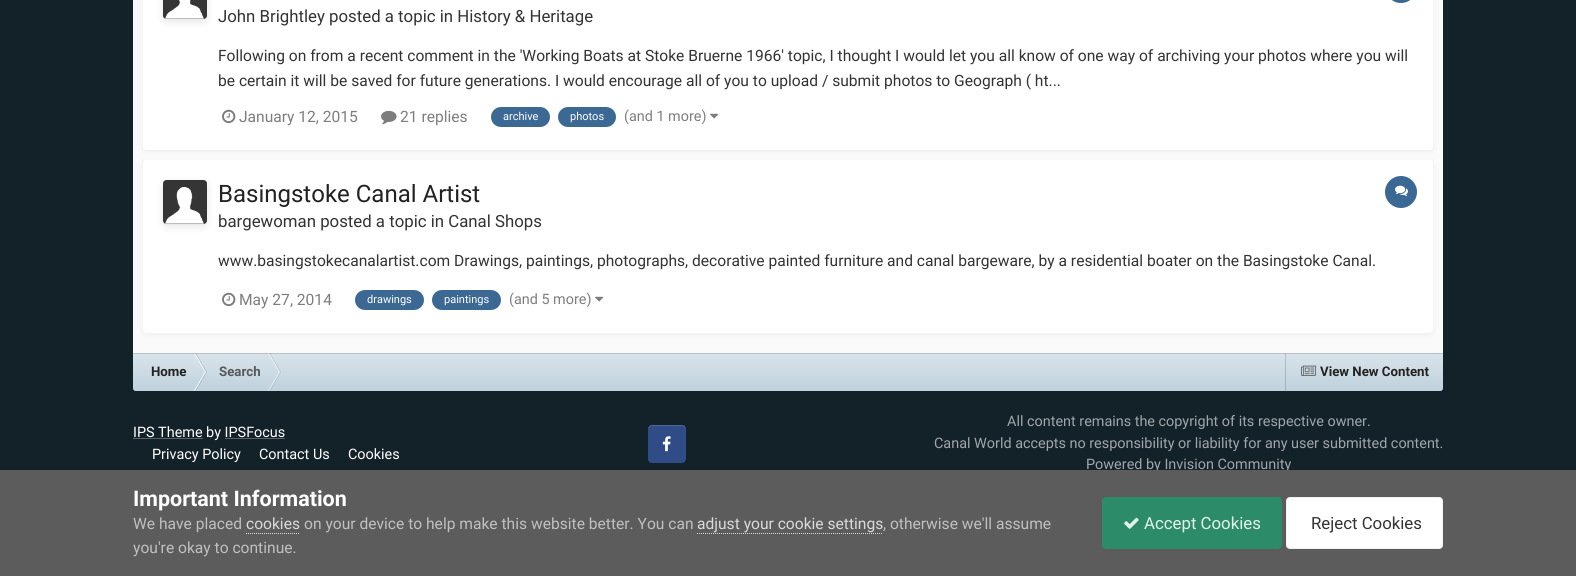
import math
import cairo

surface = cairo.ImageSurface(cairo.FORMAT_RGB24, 1576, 576)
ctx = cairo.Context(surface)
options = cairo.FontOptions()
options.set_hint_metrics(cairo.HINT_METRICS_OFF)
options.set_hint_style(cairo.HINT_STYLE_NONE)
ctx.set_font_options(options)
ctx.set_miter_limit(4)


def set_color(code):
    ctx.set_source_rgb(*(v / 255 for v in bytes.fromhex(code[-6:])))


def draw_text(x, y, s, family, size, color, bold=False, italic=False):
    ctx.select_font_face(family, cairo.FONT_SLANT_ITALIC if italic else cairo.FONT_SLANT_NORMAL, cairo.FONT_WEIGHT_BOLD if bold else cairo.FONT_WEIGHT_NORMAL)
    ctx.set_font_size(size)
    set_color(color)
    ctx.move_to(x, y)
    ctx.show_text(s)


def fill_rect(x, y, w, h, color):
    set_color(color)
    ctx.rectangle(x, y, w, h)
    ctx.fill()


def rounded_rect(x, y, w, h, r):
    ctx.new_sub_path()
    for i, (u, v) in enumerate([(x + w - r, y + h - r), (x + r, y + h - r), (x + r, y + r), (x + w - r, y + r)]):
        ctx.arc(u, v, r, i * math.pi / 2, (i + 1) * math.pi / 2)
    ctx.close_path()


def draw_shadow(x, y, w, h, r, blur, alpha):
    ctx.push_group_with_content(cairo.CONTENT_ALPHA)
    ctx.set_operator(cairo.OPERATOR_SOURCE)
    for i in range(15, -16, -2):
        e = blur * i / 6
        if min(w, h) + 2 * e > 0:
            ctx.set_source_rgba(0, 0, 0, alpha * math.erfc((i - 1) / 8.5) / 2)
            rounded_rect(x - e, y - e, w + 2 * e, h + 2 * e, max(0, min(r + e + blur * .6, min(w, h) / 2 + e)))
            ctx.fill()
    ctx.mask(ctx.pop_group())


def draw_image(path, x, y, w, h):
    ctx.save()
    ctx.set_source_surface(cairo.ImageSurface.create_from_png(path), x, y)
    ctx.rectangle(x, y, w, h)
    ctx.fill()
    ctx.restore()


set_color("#132129")
ctx.paint()
set_color("#fafafa")
rounded_rect(133, -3, 1310, 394, 3)
ctx.fill()
set_color("#000000")
draw_shadow(143, -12, 1290, 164, 4, 2.5, 0.05)
set_color("#ffffff")
rounded_rect(143, -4, 1290, 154, 4)
ctx.fill()
draw_image("assets/img1.png", 163, 0, 44, 19)
ctx.save()
ctx.set_fill_rule(cairo.FILL_RULE_EVEN_ODD)
ctx.new_path()
ctx.move_to(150, 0)
ctx.line_to(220, 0)
ctx.line_to(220, 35)
ctx.line_to(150, 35)
ctx.close_path()
ctx.move_to(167, -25)
ctx.line_to(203, -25)
ctx.curve_to(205, -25, 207, -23, 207, -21)
ctx.line_to(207, 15)
ctx.curve_to(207, 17, 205, 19, 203, 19)
ctx.line_to(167, 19)
ctx.curve_to(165, 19, 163, 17, 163, 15)
ctx.line_to(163, -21)
ctx.curve_to(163, -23, 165, -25, 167, -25)
ctx.close_path()
ctx.clip()
set_color("#000000")
draw_shadow(163, -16, 44, 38, 4, 4, 0.1)
ctx.restore()
rounded_rect(163.5, -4.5, 43, 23, 3.5)
ctx.set_source_rgba(0.2, 0.2, 0.2, 0.3)
ctx.set_line_width(1)
ctx.stroke()
draw_text(218, 22, "John Brightley posted a topic in History & Heritage", "Roboto", 16.8, "#333333")
set_color("#3c6994")
rounded_rect(1385, -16, 32, 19, 16)
ctx.fill()
draw_text(218, 61, "Following on from a recent comment in the 'Working Boats at Stoke Bruerne 1966' topic, I thought I would let you all know of one way of archiving your photos where you will", "Roboto", 15.6, "#333333")
draw_text(218, 86, "be certain it will be saved for future generations. I would encourage all of you to upload / submit photos to Geograph ( ht...", "Roboto", 15.6, "#333333")
draw_image("assets/img2.png", 222, 109, 14, 15)
draw_text(239, 122, "January 12, 2015", "Roboto", 15.6, "#7d7d7d")
draw_image("assets/img3.png", 381, 110, 16, 15)
draw_text(400, 122, "21 replies", "Roboto", 15.6, "#7d7d7d")
set_color("#3c6994")
rounded_rect(491, 107, 59, 20, 10)
ctx.fill()
draw_text(503, 120, "archive", "Roboto", 11, "#ffffff")
set_color("#3c6994")
rounded_rect(558, 107, 58, 20, 10)
ctx.fill()
draw_text(570, 120, "photos", "Roboto", 11, "#ffffff")
draw_text(624, 121, "(and 1 more)", "Roboto", 14.4, "#7d7d7d")
draw_image("assets/img4.png", 710, 113, 9, 6)
set_color("#000000")
draw_shadow(143, 162, 1290, 173, 4, 2.5, 0.05)
set_color("#ffffff")
rounded_rect(143, 160, 1290, 173, 4)
ctx.fill()
draw_image("assets/img5.png", 163, 180, 44, 44)
ctx.save()
ctx.set_fill_rule(cairo.FILL_RULE_EVEN_ODD)
ctx.new_path()
ctx.move_to(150, 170)
ctx.line_to(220, 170)
ctx.line_to(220, 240)
ctx.line_to(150, 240)
ctx.close_path()
ctx.move_to(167, 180)
ctx.line_to(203, 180)
ctx.curve_to(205, 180, 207, 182, 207, 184)
ctx.line_to(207, 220)
ctx.curve_to(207, 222, 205, 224, 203, 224)
ctx.line_to(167, 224)
ctx.curve_to(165, 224, 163, 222, 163, 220)
ctx.line_to(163, 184)
ctx.curve_to(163, 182, 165, 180, 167, 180)
ctx.close_path()
ctx.clip()
set_color("#000000")
draw_shadow(163, 183, 44, 44, 4, 4, 0.1)
ctx.restore()
rounded_rect(163.5, 180.5, 43, 43, 3.5)
ctx.set_source_rgba(0.2, 0.2, 0.2, 0.3)
ctx.stroke()
draw_text(218, 202, "Basingstoke Canal Artist", "Roboto", 24, "#222222")
draw_text(218, 227, "bargewoman posted a topic in Canal Shops", "Roboto", 16.8, "#333333")
set_color("#3c6994")
ctx.new_path()
ctx.arc(1401, 192, 16, 0, 2 * math.pi)
ctx.fill()
draw_image("assets/img6.png", 1395, 185, 13, 11)
draw_text(218, 266, "www.basingstokecanalartist.com Drawings, paintings, photographs, decorative painted furniture and canal bargeware, by a residential boater on the Basingstoke Canal.", "Roboto", 15.6, "#333333")
draw_image("assets/img2.png", 222, 292, 14, 15)
draw_text(239, 305, "May 27, 2014", "Roboto", 15.6, "#7d7d7d")
set_color("#3c6994")
rounded_rect(355, 290, 69, 20, 10)
ctx.fill()
draw_text(367, 303, "drawings", "Roboto", 11, "#ffffff")
set_color("#3c6994")
rounded_rect(432, 290, 69, 20, 10)
ctx.fill()
draw_text(444, 303, "paintings", "Roboto", 11, "#ffffff")
draw_text(509, 304, "(and 5 more)", "Roboto", 14.4, "#7d7d7d")
draw_image("assets/img4.png", 595, 296, 9, 6)
set_color("#014974")
ctx.new_path()
ctx.move_to(133, 353)
ctx.line_to(1443, 353)
ctx.line_to(1443, 388)
ctx.curve_to(1443, 389.5, 1441.5, 391, 1440, 391)
ctx.line_to(136, 391)
ctx.curve_to(134.5, 391, 133, 389.5, 133, 388)
ctx.close_path()
ctx.fill()
gradient = cairo.LinearGradient(788, 353, 788, 391)
gradient.add_color_stop_rgba(0, 1, 1, 1, 0.85)
gradient.add_color_stop_rgba(1, 1, 1, 1, 0.75)
ctx.set_source(gradient)
ctx.new_path()
ctx.move_to(133, 353)
ctx.line_to(1443, 353)
ctx.line_to(1443, 388)
ctx.curve_to(1443, 389.5, 1441.5, 391, 1440, 391)
ctx.line_to(136, 391)
ctx.curve_to(134.5, 391, 133, 389.5, 133, 388)
ctx.close_path()
ctx.fill()
set_color("#ffffff")
ctx.new_path()
ctx.move_to(194, 353)
ctx.line_to(195, 353)
ctx.line_to(206, 372)
ctx.line_to(205, 372)
ctx.close_path()
ctx.fill()
ctx.set_source_rgba(0.2, 0.2, 0.2, 0.2)
ctx.new_path()
ctx.move_to(195, 353)
ctx.line_to(196, 353)
ctx.line_to(207, 372)
ctx.line_to(206, 372)
ctx.close_path()
ctx.fill()
ctx.set_source_rgba(1, 1, 1, 0.7)
ctx.new_path()
ctx.move_to(268, 353)
ctx.line_to(269, 353)
ctx.line_to(280, 372)
ctx.line_to(279, 372)
ctx.close_path()
ctx.fill()
ctx.set_source_rgba(0.2, 0.2, 0.2, 0.14)
ctx.new_path()
ctx.move_to(269, 353)
ctx.line_to(270, 353)
ctx.line_to(281, 372)
ctx.line_to(280, 372)
ctx.close_path()
ctx.fill()
ctx.set_source_rgba(0.2, 0.2, 0.2, 0.2)
ctx.rectangle(1285, 353, 1, 38)
ctx.fill()
ctx.rectangle(133, 353, 1310, 1)
ctx.fill()
draw_text(151, 376, "Home", "Roboto", 13.25, "#222222", bold=True)
set_color("#ffffff")
ctx.new_path()
ctx.move_to(194, 391)
ctx.line_to(195, 391)
ctx.line_to(206, 372)
ctx.line_to(205, 372)
ctx.close_path()
ctx.fill()
ctx.set_source_rgba(0.2, 0.2, 0.2, 0.2)
ctx.new_path()
ctx.move_to(195, 391)
ctx.line_to(196, 391)
ctx.line_to(207, 372)
ctx.line_to(206, 372)
ctx.close_path()
ctx.fill()
draw_text(219, 376, "Search", "Roboto", 13.25, "#55595c", bold=True)
ctx.set_source_rgba(1, 1, 1, 0.7)
ctx.new_path()
ctx.move_to(268, 391)
ctx.line_to(269, 391)
ctx.line_to(280, 372)
ctx.line_to(279, 372)
ctx.close_path()
ctx.fill()
ctx.set_source_rgba(0.2, 0.2, 0.2, 0.14)
ctx.new_path()
ctx.move_to(269, 391)
ctx.line_to(270, 391)
ctx.line_to(281, 372)
ctx.line_to(280, 372)
ctx.close_path()
ctx.fill()
draw_image("assets/img7.png", 1301, 365, 16, 11)
draw_text(1320, 376, "View New Content", "Roboto", 13.25, "#222222", bold=True)
fill_rect(133, 438, 70, 1, "#5a6469")
draw_text(133, 437, "IPS Theme by IPSFocus", "Roboto", 14.4, "#ffffff")
fill_rect(225, 438, 60, 1, "#5a6469")
draw_text(152, 459, "Privacy Policy", "Roboto", 14.4, "#ffffff")
draw_text(259, 459, "Contact Us", "Roboto", 14.4, "#ffffff")
draw_text(348, 459, "Cookies", "Roboto", 14.4, "#ffffff")
set_color("#304c87")
rounded_rect(648, 425, 38, 38, 4)
ctx.fill()
ctx.set_source_rgba(1, 1, 1, 0.15)
ctx.new_path()
ctx.move_to(652, 426)
ctx.curve_to(650, 426, 648, 428, 648, 430)
ctx.curve_to(648, 424, 652.5, 425, 657, 425)
ctx.line_to(677, 425)
ctx.curve_to(681.5, 425, 686, 424, 686, 430)
ctx.curve_to(686, 428, 684, 426, 682, 426)
ctx.close_path()
ctx.fill()
draw_image("assets/img8.png", 662, 436, 9, 16)
draw_text(1007, 426, "All content remains the copyright of its respective owner.", "Roboto", 14.4, "#a1a6a9")
draw_text(934, 448, "Canal World accepts no responsibility or liability for any user submitted content.", "Roboto", 14.4, "#a1a6a9")
draw_text(1086, 469, "Powered by Invision Community", "Roboto", 14.4, "#a1a6a9")
fill_rect(0, 470, 1576, 106, "#5c5c5c")
draw_text(133, 506, "Important Information", "Roboto", 21.5, "#ffffff", bold=True)
draw_text(133, 529, "We have placed", "Roboto", 15.6, "#c0c0c0")
draw_text(246, 529, "cookies", "Roboto", 15.6, "#dadada")
ctx.new_path()
ctx.move_to(246, 533.5)
ctx.line_to(300, 533.5)
ctx.set_dash([1, 1])
ctx.stroke()
draw_text(304, 529, "on your device to help make this website better. You can", "Roboto", 15.6, "#c0c0c0")
draw_text(697, 529, "adjust your cookie settings", "Roboto", 15.6, "#dadada")
ctx.new_path()
ctx.move_to(697, 533.5)
ctx.line_to(883, 533.5)
ctx.stroke()
draw_text(883, 529, ", otherwise we'll assume", "Roboto", 15.6, "#c0c0c0")
draw_text(133, 553, "you're okay to continue.", "Roboto", 15.6, "#c0c0c0")
set_color("#2c8c69")
rounded_rect(1102, 497, 180, 52, 4)
ctx.fill()
draw_image("assets/img9.png", 1124, 517, 15, 12)
draw_text(1144, 529, "Accept Cookies", "Roboto", 16.8, "#e3f3ec")
set_color("#ffffff")
rounded_rect(1286, 497, 157, 52, 4)
ctx.fill()
rounded_rect(1286.5, 497.5, 156, 51, 3.5)
ctx.set_source_rgba(0.2, 0.2, 0.2, 0.07)
ctx.set_dash([])
ctx.stroke()
draw_text(1311, 529, "Reject Cookies", "Roboto", 16.8, "#333333")
surface.write_to_png("output.png")
